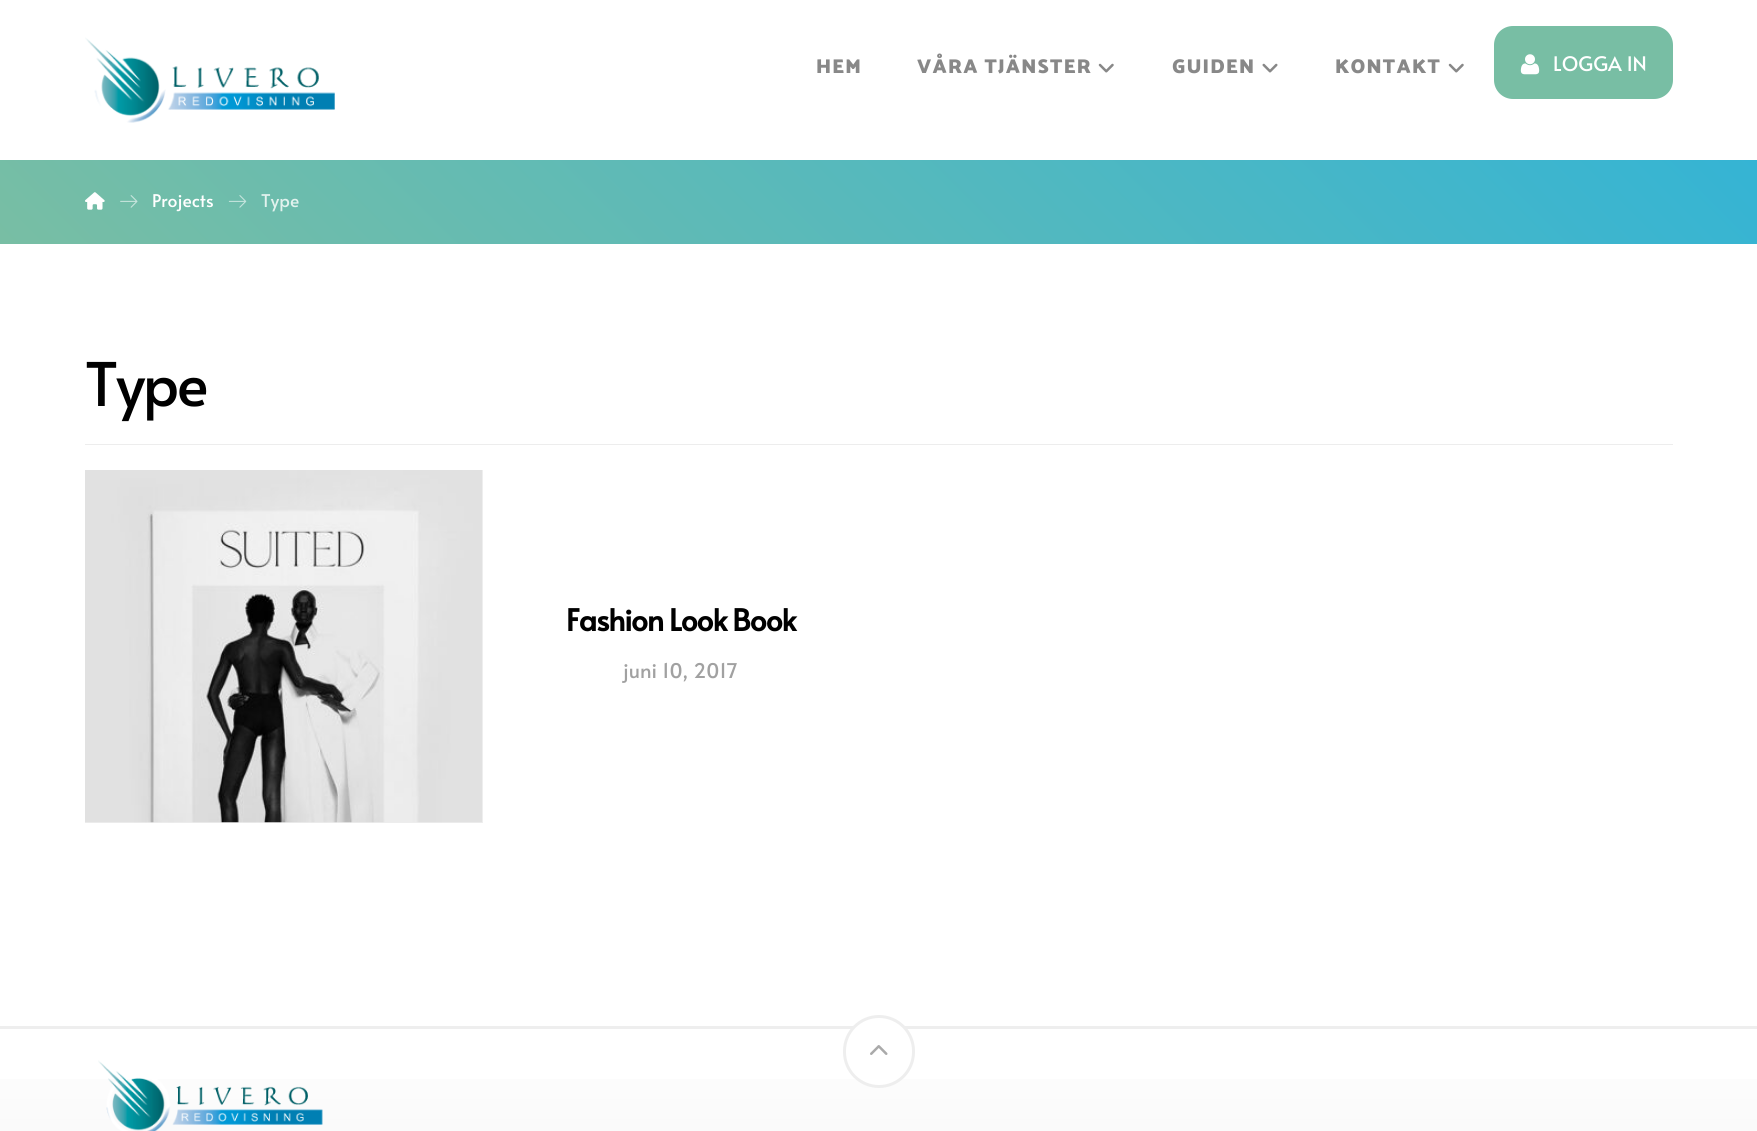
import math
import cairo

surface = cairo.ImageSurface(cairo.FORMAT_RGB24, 1757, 1131)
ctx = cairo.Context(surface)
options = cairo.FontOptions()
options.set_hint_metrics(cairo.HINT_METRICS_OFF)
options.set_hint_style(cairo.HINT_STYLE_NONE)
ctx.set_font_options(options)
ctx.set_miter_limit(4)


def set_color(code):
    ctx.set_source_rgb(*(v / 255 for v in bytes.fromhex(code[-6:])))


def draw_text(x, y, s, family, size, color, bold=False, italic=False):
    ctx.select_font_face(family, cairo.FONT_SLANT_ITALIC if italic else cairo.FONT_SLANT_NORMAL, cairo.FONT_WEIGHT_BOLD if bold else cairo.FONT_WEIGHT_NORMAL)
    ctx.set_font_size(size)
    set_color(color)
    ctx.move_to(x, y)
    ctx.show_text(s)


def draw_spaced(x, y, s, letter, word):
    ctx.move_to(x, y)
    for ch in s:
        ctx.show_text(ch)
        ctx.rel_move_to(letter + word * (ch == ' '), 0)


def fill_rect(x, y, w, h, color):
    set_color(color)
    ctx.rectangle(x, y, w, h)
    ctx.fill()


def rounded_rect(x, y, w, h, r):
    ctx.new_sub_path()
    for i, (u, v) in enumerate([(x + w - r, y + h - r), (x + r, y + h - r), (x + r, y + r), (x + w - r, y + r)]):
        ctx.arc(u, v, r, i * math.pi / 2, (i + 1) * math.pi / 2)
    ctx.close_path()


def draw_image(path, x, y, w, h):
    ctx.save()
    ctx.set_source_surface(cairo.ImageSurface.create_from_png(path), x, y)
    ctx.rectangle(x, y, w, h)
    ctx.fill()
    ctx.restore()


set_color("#ffffff")
ctx.paint()
draw_image("assets/img1.png", 85, 37, 250, 86)
ctx.select_font_face("Palanquin Dark", cairo.FONT_SLANT_NORMAL, cairo.FONT_WEIGHT_BOLD)
ctx.set_font_size(20)
set_color("#888888")
draw_spaced(816, 73, "HEM", 1.25, 0)
draw_spaced(917, 73, "VÅRA TJÄNSTER", 1.25, 0)
draw_image("assets/img2.png", 1098, 63, 16, 10)
draw_spaced(1172, 73, "GUIDEN", 1.25, 0)
draw_image("assets/img3.png", 1262, 63, 16, 10)
draw_spaced(1335, 73, "KONTAKT", 1.25, 0)
draw_image("assets/img2.png", 1448, 63, 16, 10)
set_color("#78bea4")
rounded_rect(1494, 26, 179, 73, 19)
ctx.fill()
draw_image("assets/img4.png", 1520, 54, 20, 21)
draw_text(1553, 71, "LOGGA IN", "Alata", 20, "#ffffff")
gradient = cairo.LinearGradient(418, 662, 1339, -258)
gradient.add_color_stop_rgba(0, 0.471, 0.745, 0.643, 1)
gradient.add_color_stop_rgba(1, 0.208, 0.706, 0.831, 1)
ctx.set_source(gradient)
ctx.rectangle(0, 160, 1757, 84)
ctx.fill()
draw_image("assets/img5.png", 85, 192, 20, 18)
draw_image("assets/img6.png", 120, 195, 18, 13)
draw_text(152, 207, "Projects", "Alata", 17.5, "#ffffff")
draw_image("assets/img7.png", 228, 195, 19, 13)
draw_text(261, 207, "Type", "Alata", 17.5, "#e2f2ee")
fill_rect(85, 444, 1588, 1, "#ededed")
ctx.set_font_size(60)
set_color("#000000")
draw_spaced(85, 406, "Type", -2.5, 0)
fill_rect(85, 470, 398, 353, "#eeeeee")
draw_image("assets/img8.png", 85, 470, 397, 353)
ctx.select_font_face("Alata", cairo.FONT_SLANT_NORMAL, cairo.FONT_WEIGHT_BOLD)
ctx.set_font_size(30)
set_color("#000000")
draw_spaced(566, 631, "Fashion Look Book", -1.25, 0)
draw_text(623, 678, "juni 10, 2017", "Alata", 20.25, "#a1a1a1")
gradient = cairo.LinearGradient(879, 1029, 879, 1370)
gradient.add_color_stop_rgba(0, 1, 1, 1, 1)
gradient.add_color_stop_rgba(1, 0.933, 0.933, 0.933, 1)
ctx.set_source(gradient)
ctx.rectangle(0, 1079, 1757, 52)
ctx.fill()
fill_rect(0, 1026, 1757, 3, "#eeeeee")
set_color("#ffffff")
rounded_rect(844.5, 1016.5, 69, 70, 34.5)
ctx.fill_preserve()
set_color("#eeeeee")
ctx.set_line_width(3)
ctx.stroke()
draw_image("assets/img9.png", 870, 1045, 18, 10)
draw_image("assets/img10.png", 98, 1060, 225, 71)
surface.write_to_png("output.png")
